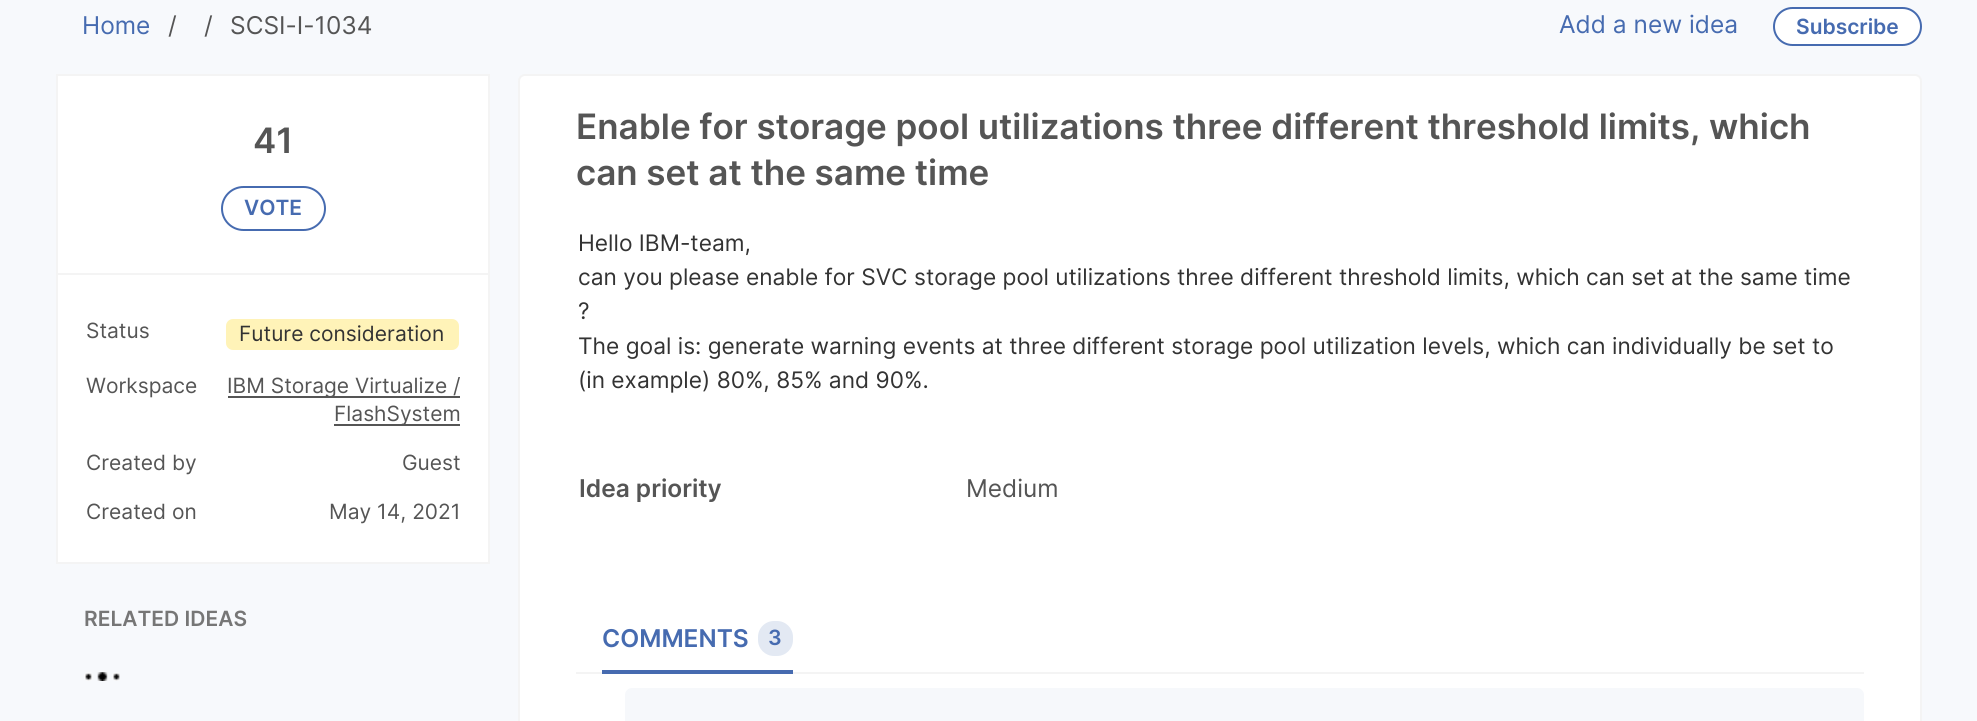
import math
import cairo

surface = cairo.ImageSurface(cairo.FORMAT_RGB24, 1977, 721)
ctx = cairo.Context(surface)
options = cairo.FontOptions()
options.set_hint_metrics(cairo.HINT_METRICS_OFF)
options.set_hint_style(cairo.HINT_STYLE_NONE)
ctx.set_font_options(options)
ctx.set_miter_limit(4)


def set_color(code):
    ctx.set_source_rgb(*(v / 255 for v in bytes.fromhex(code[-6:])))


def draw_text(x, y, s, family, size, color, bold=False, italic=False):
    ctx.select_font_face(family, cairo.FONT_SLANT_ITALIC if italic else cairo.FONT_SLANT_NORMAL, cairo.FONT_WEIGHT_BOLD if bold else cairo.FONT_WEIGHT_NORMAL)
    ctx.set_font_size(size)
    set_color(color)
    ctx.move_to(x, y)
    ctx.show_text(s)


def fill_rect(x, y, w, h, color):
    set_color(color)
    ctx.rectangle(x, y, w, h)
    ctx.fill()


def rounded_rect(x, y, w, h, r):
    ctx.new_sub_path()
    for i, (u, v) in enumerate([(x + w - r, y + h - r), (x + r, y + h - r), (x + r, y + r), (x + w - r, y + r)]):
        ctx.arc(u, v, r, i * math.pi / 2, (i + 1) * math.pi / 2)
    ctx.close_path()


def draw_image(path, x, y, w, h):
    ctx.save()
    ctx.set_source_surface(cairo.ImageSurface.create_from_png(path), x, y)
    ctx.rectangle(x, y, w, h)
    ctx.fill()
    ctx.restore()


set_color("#f7f9fc")
ctx.paint()
draw_text(82, 34, "Home", "Inter", 24.5, "#466bb0")
draw_text(168, 34, "/", "Inter", 24.5, "#555555")
draw_text(204, 34, "/", "Inter", 24.5, "#555555")
draw_text(230, 34, "SCSI-I-1034", "Inter", 24.5, "#555555")
draw_text(1559, 33, "Add a new idea", "Inter", 24.5, "#466bb0")
set_color("#ffffff")
rounded_rect(1774, 8, 147, 37, 18.5)
ctx.fill_preserve()
set_color("#466bb0")
ctx.stroke()
draw_text(1796, 34, "Subscribe", "Inter SemiBold", 21, "#466bb0")
set_color("#ffffff")
ctx.rectangle(57, 75, 432, 488)
ctx.fill_preserve()
set_color("#f4f4f4")
ctx.stroke()
draw_text(253, 153, "41", "Inter SemiBold", 35, "#555555")
rounded_rect(222, 187, 103, 43, 21.5)
set_color("#466bb0")
ctx.stroke()
draw_text(244, 215, "VOTE", "Inter SemiBold", 21, "#466bb0")
fill_rect(58, 273, 430, 2, "#f4f4f4")
draw_text(86, 338, "Status", "Inter", 21, "#555555")
set_color("#fff3b8")
rounded_rect(226, 319, 233, 31, 7)
ctx.fill()
draw_text(239, 341, "Future consideration", "Inter", 21, "#333333")
draw_text(86, 393, "Workspace", "Inter", 21, "#555555")
fill_rect(228, 396, 232, 2, "#555555")
draw_text(227, 393, "IBM Storage Virtualize /", "Inter", 21, "#555555")
fill_rect(334, 424, 126, 2, "#555555")
draw_text(334, 421, "FlashSystem", "Inter", 21, "#555555")
draw_text(86, 470, "Created by", "Inter", 21, "#555555")
draw_text(402, 470, "Guest", "Inter", 21, "#555555")
draw_text(86, 519, "Created on", "Inter", 21, "#555555")
draw_text(329, 519, "May 14, 2021", "Inter", 21, "#555555")
draw_text(84, 626, "RELATED IDEAS", "Inter SemiBold", 21, "#767676")
draw_image("assets/img1.png", 84, 672, 36, 9)
set_color("#ffffff")
rounded_rect(519, 75, 1402, 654, 6)
ctx.fill_preserve()
set_color("#f4f4f4")
ctx.stroke()
draw_text(576, 139, "Enable for storage pool utilizations three different threshold limits, which", "Inter SemiBold", 35, "#555555")
draw_text(576, 185, "can set at the same time", "Inter SemiBold", 35, "#555555")
draw_text(578, 251, "Hello IBM-team,", "Inter", 22.75, "#333333")
draw_text(578, 285, "can you please enable for SVC storage pool utilizations three different threshold limits, which can set at the same time", "Inter", 22.75, "#333333")
draw_text(578, 319, "?", "Inter", 22.75, "#333333")
draw_text(578, 354, "The goal is: generate warning events at three different storage pool utilization levels, which can individually be set to", "Inter", 22.75, "#333333")
draw_text(578, 388, "(in example) 80%, 85% and 90%.", "Inter", 22.75, "#333333")
draw_text(579, 497, "Idea priority", "Inter SemiBold", 24.5, "#555555")
draw_text(966, 497, "Medium", "Inter", 24.5, "#555555")
fill_rect(576, 672, 1288, 2, "#f4f4f4")
fill_rect(602, 670, 191, 4, "#466bb0")
draw_text(602, 647, "COMMENTS", "Inter SemiBold", 24.5, "#466bb0")
set_color("#e3e9f3")
rounded_rect(758, 621, 35, 35, 16)
ctx.fill()
draw_text(768, 645, "3", "Inter SemiBold", 21, "#466bb0")
set_color("#f6f8fb")
rounded_rect(625, 688, 1239, 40, 7)
ctx.fill()
surface.write_to_png("output.png")
